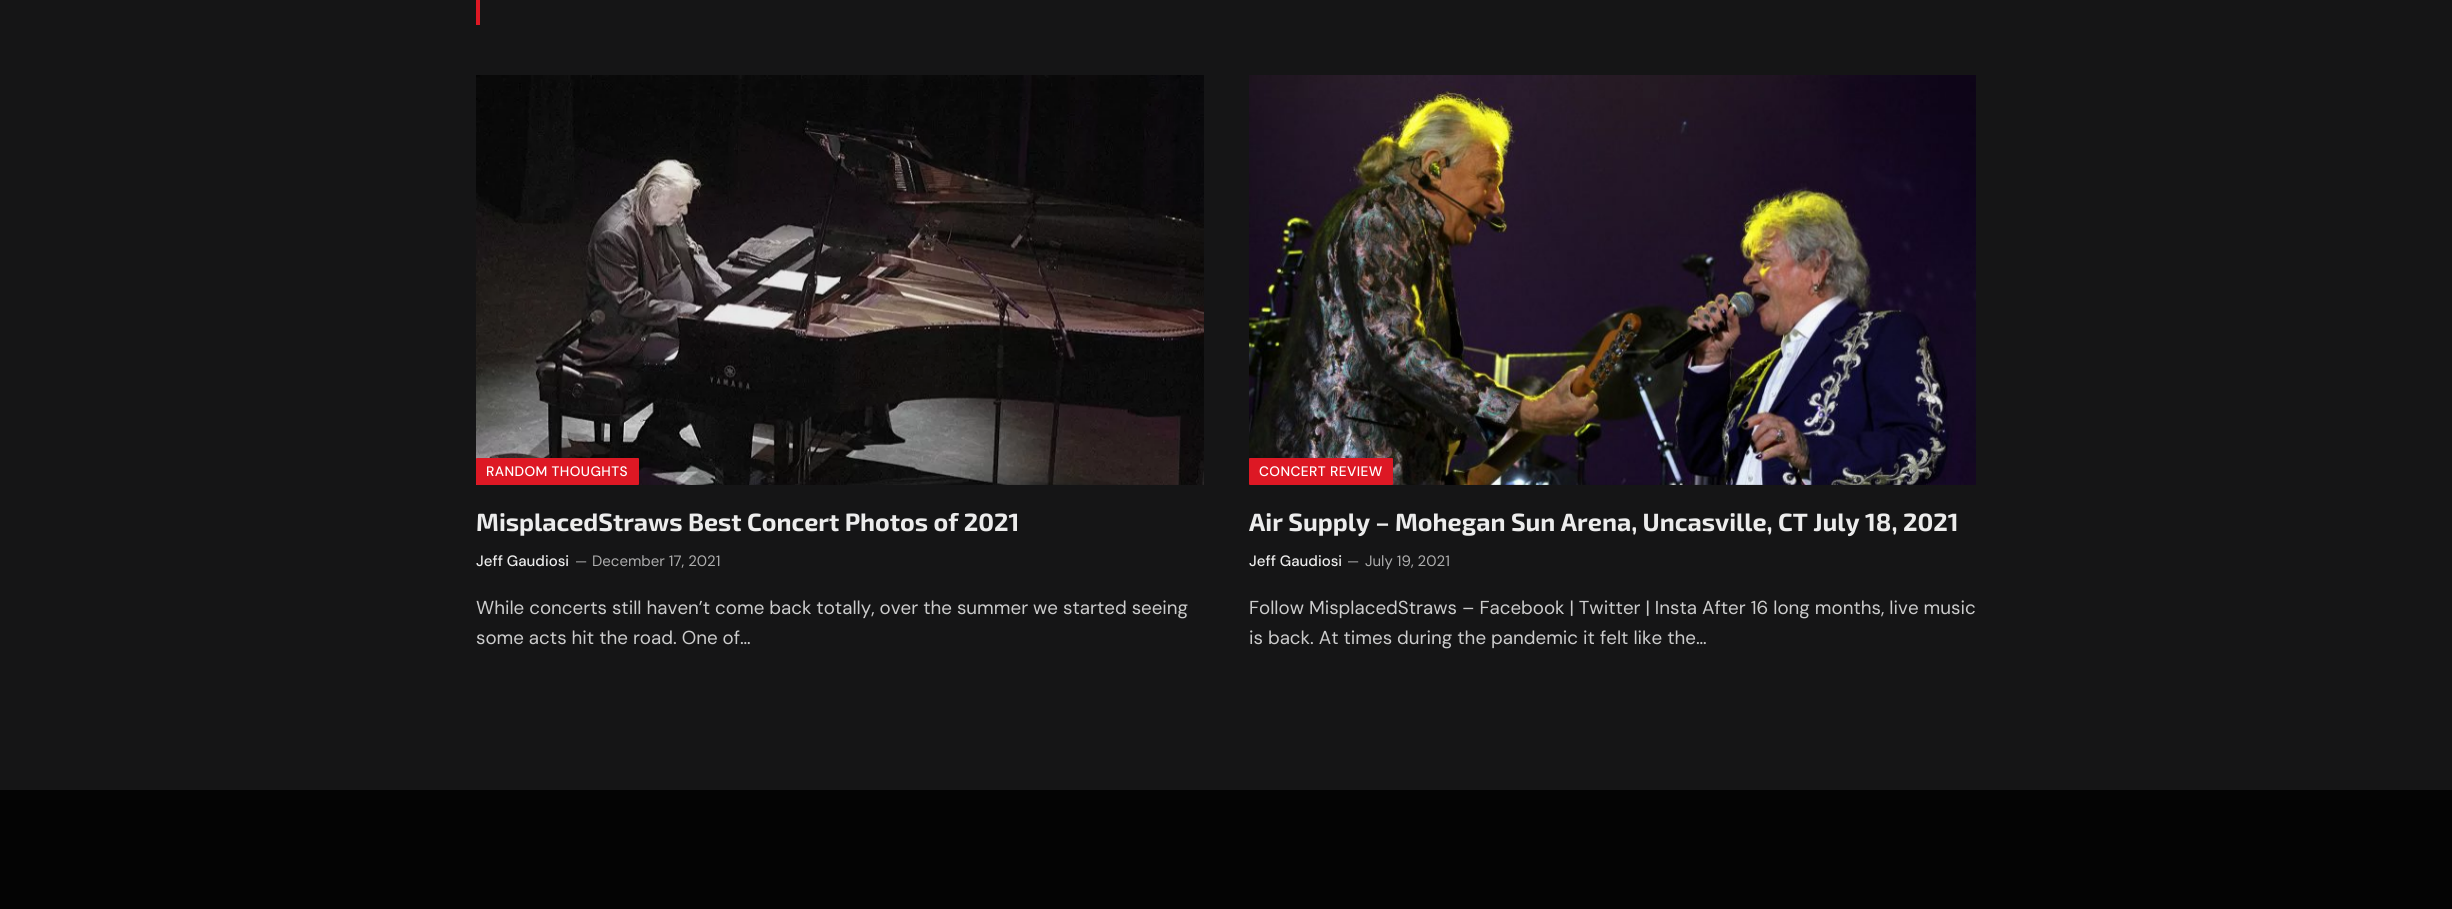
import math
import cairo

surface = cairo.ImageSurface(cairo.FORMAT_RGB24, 2452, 909)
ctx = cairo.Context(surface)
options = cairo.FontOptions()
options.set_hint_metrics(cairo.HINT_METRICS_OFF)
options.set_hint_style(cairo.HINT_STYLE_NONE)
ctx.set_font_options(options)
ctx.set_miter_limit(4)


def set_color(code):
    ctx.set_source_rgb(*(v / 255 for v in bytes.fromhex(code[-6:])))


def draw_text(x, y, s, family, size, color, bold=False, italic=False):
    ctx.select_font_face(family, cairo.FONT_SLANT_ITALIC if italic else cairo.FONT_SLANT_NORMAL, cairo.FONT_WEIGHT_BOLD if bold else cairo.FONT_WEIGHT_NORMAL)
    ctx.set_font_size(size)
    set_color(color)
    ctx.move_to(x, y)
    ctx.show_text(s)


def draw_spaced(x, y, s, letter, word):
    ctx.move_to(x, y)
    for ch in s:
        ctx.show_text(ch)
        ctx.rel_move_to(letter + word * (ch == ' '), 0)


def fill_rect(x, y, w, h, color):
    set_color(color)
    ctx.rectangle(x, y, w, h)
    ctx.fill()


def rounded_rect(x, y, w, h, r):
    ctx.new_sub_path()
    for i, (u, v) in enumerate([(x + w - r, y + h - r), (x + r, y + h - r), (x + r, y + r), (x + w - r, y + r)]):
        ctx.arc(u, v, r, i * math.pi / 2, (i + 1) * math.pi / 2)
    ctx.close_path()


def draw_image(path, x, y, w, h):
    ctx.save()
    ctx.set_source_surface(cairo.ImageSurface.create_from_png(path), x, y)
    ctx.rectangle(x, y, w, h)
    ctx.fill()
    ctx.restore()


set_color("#151516")
ctx.paint()
fill_rect(476, 0, 4, 25, "#dd1824")
draw_image("assets/img1.png", 476, 75, 728, 410)
rounded_rect(476, 458, 163, 27, 1)
ctx.fill()
ctx.select_font_face("DM Sans Medium")
ctx.set_font_size(13.75)
set_color("#ffffff")
draw_spaced(486, 476, "RANDOM THOUGHTS", 0.4, 0)
draw_text(476, 531, "MisplacedStraws Best Concert Photos of 2021", "Exo 2", 25, "#ececec", bold=True)
draw_text(476, 566, "Jeff Gaudiosi", "DM Sans Medium", 15, "#ececec")
draw_text(575, 566, "—", "DM Sans", 14, "#adadad")
draw_text(592, 566, "December 17, 2021", "DM Sans", 15, "#adadad")
draw_text(476, 614, "While concerts still haven’t come back totally, over the summer we started seeing", "DM Sans", 18.75, "#cccccc")
draw_text(476, 644, "some acts hit the road. One of…", "DM Sans", 18.75, "#cccccc")
draw_image("assets/img2.png", 1249, 75, 727, 410)
set_color("#dd1824")
rounded_rect(1249, 458, 144, 27, 1)
ctx.fill()
ctx.select_font_face("DM Sans Medium")
ctx.set_font_size(13.75)
set_color("#ffffff")
draw_spaced(1259, 476, "CONCERT REVIEW", 0.4, 0)
draw_text(1249, 531, "Air Supply – Mohegan Sun Arena, Uncasville, CT July 18, 2021", "Exo 2", 25, "#ececec", bold=True)
draw_text(1249, 566, "Jeff Gaudiosi", "DM Sans Medium", 15, "#ececec")
draw_text(1347, 566, "—", "DM Sans", 14, "#adadad")
draw_text(1365, 566, "July 19, 2021", "DM Sans", 15, "#adadad")
draw_text(1249, 614, "Follow MisplacedStraws – Facebook | Twitter | Insta After 16 long months, live music", "DM Sans", 18.75, "#cccccc")
draw_text(1249, 644, "is back. At times during the pandemic it felt like the…", "DM Sans", 18.75, "#cccccc")
fill_rect(0, 790, 2452, 119, "#040404")
surface.write_to_png("output.png")
